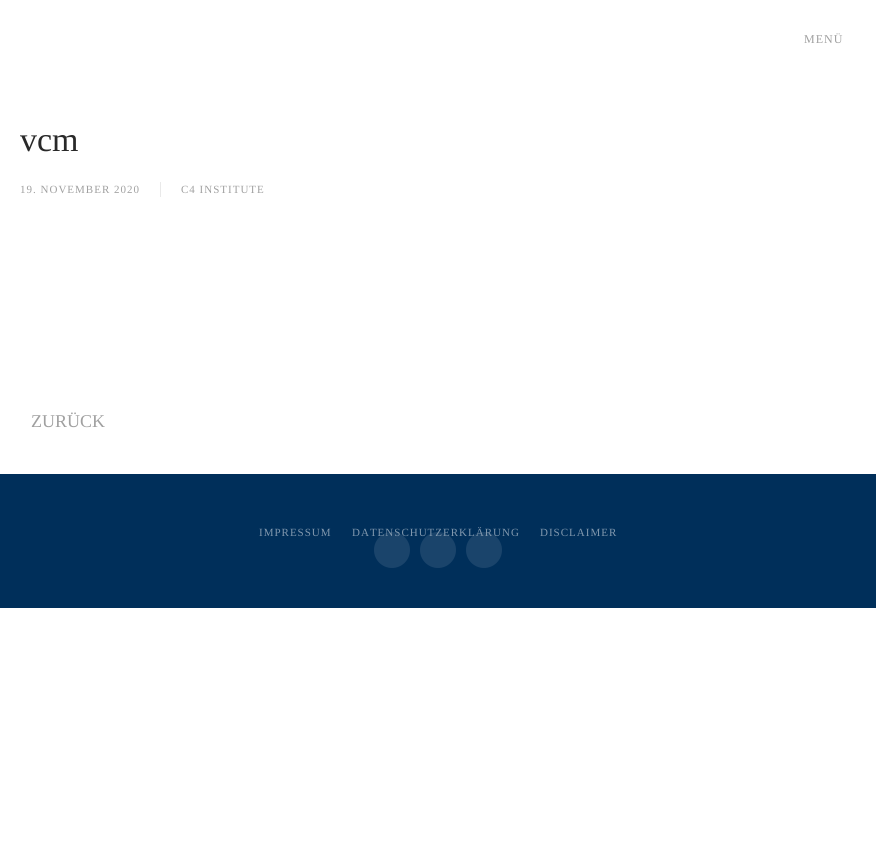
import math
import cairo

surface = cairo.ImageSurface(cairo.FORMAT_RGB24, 876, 845)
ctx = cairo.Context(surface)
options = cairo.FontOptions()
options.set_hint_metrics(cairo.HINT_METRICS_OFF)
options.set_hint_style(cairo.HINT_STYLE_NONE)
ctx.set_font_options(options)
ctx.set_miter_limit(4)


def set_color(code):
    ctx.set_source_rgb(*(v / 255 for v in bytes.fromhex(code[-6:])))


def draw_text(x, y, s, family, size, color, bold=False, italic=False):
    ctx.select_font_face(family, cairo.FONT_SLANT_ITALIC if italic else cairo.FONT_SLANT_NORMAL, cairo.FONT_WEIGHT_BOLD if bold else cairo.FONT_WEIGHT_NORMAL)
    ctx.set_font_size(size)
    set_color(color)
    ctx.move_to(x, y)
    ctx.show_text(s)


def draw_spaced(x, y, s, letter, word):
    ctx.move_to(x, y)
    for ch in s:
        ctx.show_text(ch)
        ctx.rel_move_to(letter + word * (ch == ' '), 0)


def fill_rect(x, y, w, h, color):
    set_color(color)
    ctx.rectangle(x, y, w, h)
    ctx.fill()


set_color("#ffffff")
ctx.paint()
ctx.select_font_face("Liberation Serif")
ctx.set_font_size(12)
set_color("#a0a0a0")
draw_spaced(804, 43, "MENÜ", 1, 0)
draw_text(20, 151, "vcm", "Liberation Serif", 34, "#292929")
ctx.set_font_size(11)
set_color("#a0a0a0")
draw_spaced(20, 193, "19. NOVEMBER 2020", 1, 0)
fill_rect(160, 182, 1, 15, "#e9e9e9")
set_color("#a0a0a0")
draw_spaced(181, 193, "C4 INSTITUTE", 1, 0)
draw_text(31, 427, "ZURÜCK", "Liberation Serif", 18, "#a0a0a0")
fill_rect(0, 474, 876, 134, "#002f5a")
ctx.set_font_size(11)
set_color("#8097ad")
draw_spaced(259, 536, "IMPRESSUM", 1, 0)
set_color("#1a446b")
ctx.new_path()
ctx.arc(392, 550, 18, 0, 2 * math.pi)
ctx.fill()
ctx.arc(438, 550, 18, 0, 2 * math.pi)
ctx.fill()
ctx.arc(484, 550, 18, 0, 2 * math.pi)
ctx.fill()
set_color("#8097ad")
draw_spaced(352, 536, "DATENSCHUTZERKLÄRUNG", 1, 0)
draw_spaced(540, 536, "DISCLAIMER", 1, 0)
surface.write_to_png("output.png")
